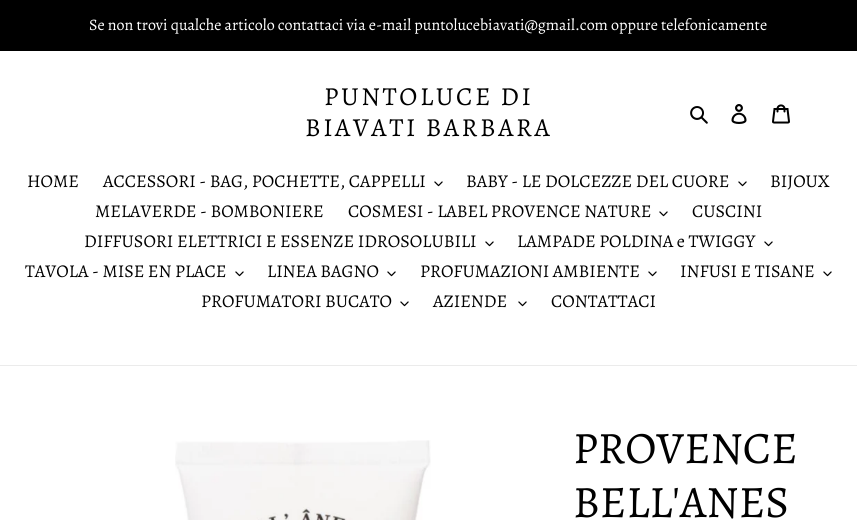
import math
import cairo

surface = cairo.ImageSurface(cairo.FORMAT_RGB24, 857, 520)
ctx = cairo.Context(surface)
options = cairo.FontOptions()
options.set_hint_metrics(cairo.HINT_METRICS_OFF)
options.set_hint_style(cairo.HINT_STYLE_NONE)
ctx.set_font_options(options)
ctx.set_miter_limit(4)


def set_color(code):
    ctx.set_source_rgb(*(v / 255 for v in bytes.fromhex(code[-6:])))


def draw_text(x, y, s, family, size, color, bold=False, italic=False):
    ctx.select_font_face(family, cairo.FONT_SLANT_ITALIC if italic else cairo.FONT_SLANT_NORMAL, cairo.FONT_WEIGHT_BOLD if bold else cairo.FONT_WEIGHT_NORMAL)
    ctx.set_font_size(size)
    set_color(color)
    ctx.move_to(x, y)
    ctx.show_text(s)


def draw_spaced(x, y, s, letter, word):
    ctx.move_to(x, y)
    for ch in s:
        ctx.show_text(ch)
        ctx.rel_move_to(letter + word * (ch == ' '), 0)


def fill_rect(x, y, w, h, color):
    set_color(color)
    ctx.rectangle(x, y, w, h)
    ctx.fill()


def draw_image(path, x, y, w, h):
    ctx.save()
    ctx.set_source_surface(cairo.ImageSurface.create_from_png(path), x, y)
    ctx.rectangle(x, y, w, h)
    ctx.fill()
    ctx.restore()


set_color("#ffffff")
ctx.paint()
fill_rect(0, 0, 857, 51, "#000000")
draw_text(89, 30, "Se non trovi qualche articolo contattaci via e-mail puntolucebiavati@gmail.com oppure telefonicamente", "Alegreya", 16, "#ffffff")
ctx.set_font_size(26)
set_color("#000000")
draw_spaced(324, 105, "PUNTOLUCE DI", 2.6, 0)
draw_spaced(305, 136, "BIAVATI BARBARA", 2.6, 0)
draw_image("assets/img1.png", 690, 106, 18, 18)
draw_image("assets/img2.png", 731, 104, 16, 20)
draw_image("assets/img3.png", 772, 104, 18, 20)
fill_rect(0, 365, 857, 1, "#ebebeb")
draw_text(27, 187, "HOME", "Alegreya", 18, "#000000")
draw_text(103, 187, "ACCESSORI - BAG, POCHETTE, CAPPELLI", "Alegreya", 18, "#000000")
draw_image("assets/img4.png", 434, 181, 9, 6)
draw_text(466, 187, "BABY - LE DOLCEZZE DEL CUORE", "Alegreya", 18, "#000000")
draw_image("assets/img4.png", 738, 181, 9, 6)
draw_text(770, 187, "BIJOUX", "Alegreya", 18, "#000000")
draw_text(95, 217, "MELAVERDE - BOMBONIERE", "Alegreya", 18, "#000000")
draw_text(348, 217, "COSMESI - LABEL PROVENCE NATURE", "Alegreya", 18, "#000000")
draw_image("assets/img4.png", 659, 211, 9, 6)
draw_text(692, 217, "CUSCINI", "Alegreya", 18, "#000000")
draw_text(84, 247, "DIFFUSORI ELETTRICI E ESSENZE IDROSOLUBILI", "Alegreya", 18, "#000000")
draw_image("assets/img4.png", 485, 241, 9, 6)
draw_text(517, 247, "LAMPADE POLDINA e TWIGGY", "Alegreya", 18, "#000000")
draw_image("assets/img4.png", 764, 241, 9, 6)
draw_text(25, 277, "TAVOLA - MISE EN PLACE", "Alegreya", 18, "#000000")
draw_image("assets/img4.png", 235, 271, 9, 6)
draw_text(267, 277, "LINEA BAGNO", "Alegreya", 18, "#000000")
draw_image("assets/img4.png", 387, 271, 9, 6)
draw_text(420, 277, "PROFUMAZIONI AMBIENTE", "Alegreya", 18, "#000000")
draw_image("assets/img4.png", 648, 271, 9, 6)
draw_text(680, 277, "INFUSI E TISANE", "Alegreya", 18, "#000000")
draw_image("assets/img4.png", 823, 271, 9, 6)
draw_text(201, 307, "PROFUMATORI BUCATO", "Alegreya", 18, "#000000")
draw_image("assets/img4.png", 400, 301, 9, 6)
draw_text(433, 307, "AZIENDE", "Alegreya", 18, "#000000")
draw_image("assets/img4.png", 518, 301, 9, 6)
draw_text(551, 307, "CONTATTACI", "Alegreya", 18, "#000000")
draw_image("assets/img5.png", 175, 440, 256, 80)
draw_text(573, 463, "PROVENCE", "Alegreya", 45, "#000000")
draw_text(573, 517, "BELL'ANES", "Alegreya", 45, "#000000")
surface.write_to_png("output.png")
